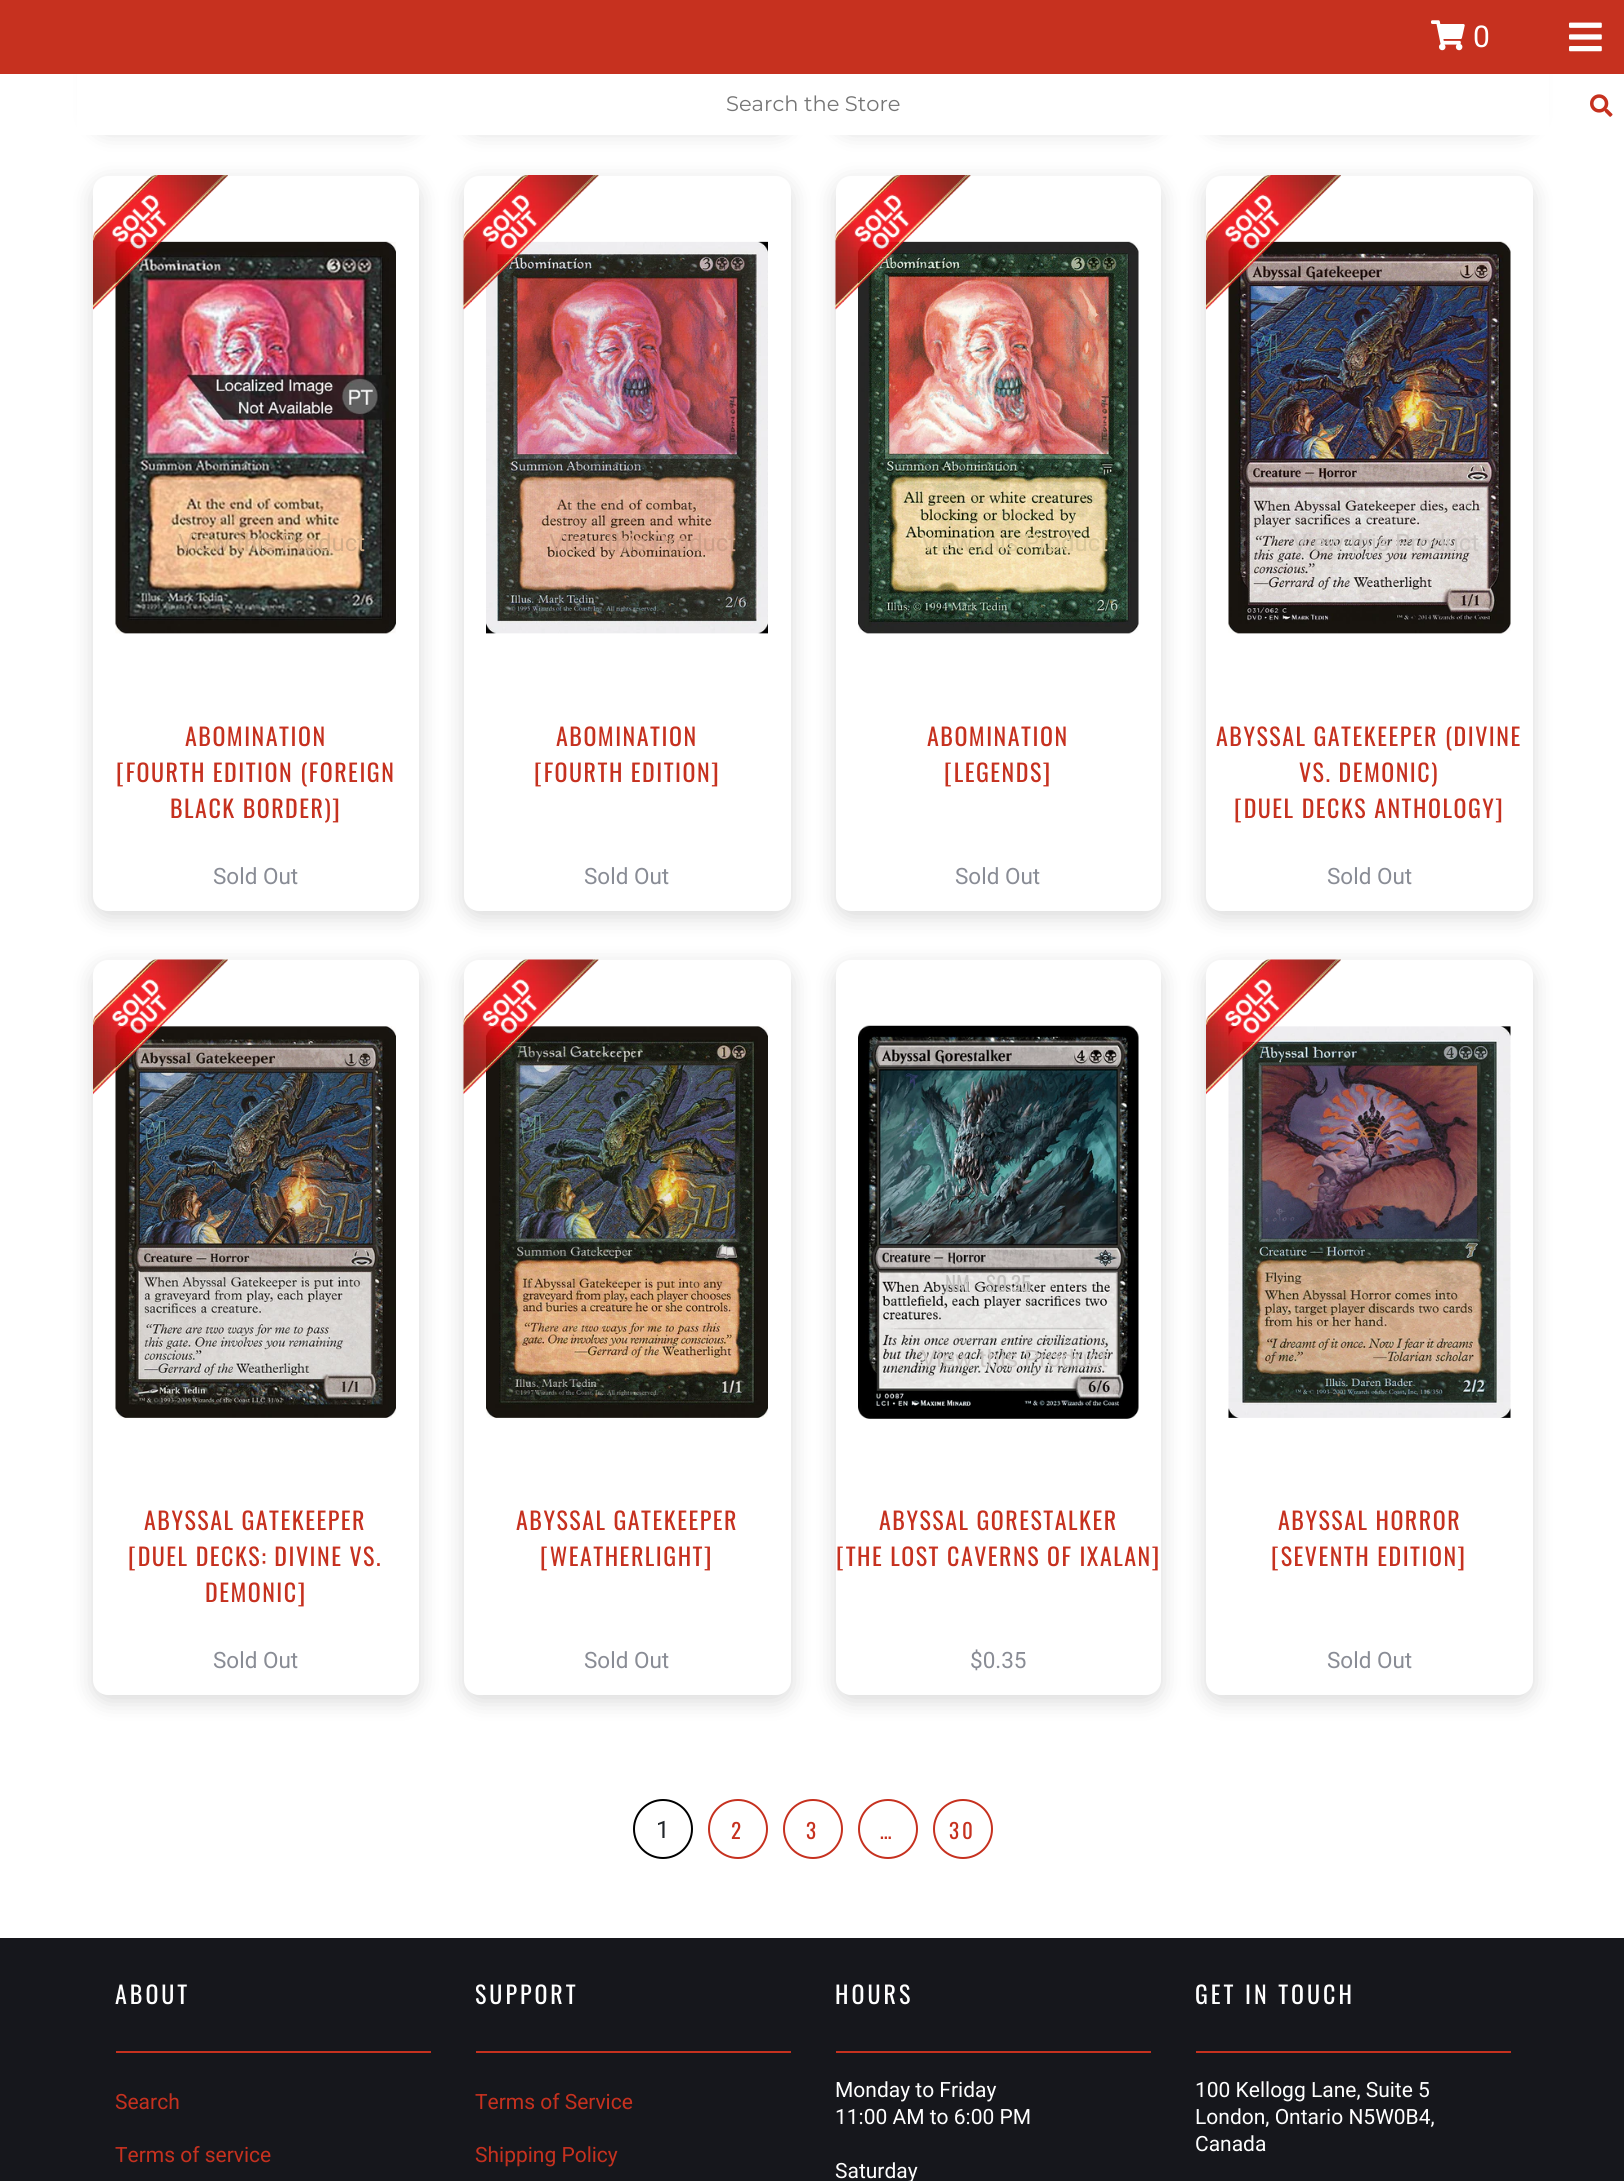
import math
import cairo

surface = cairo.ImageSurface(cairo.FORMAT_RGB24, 1624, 2181)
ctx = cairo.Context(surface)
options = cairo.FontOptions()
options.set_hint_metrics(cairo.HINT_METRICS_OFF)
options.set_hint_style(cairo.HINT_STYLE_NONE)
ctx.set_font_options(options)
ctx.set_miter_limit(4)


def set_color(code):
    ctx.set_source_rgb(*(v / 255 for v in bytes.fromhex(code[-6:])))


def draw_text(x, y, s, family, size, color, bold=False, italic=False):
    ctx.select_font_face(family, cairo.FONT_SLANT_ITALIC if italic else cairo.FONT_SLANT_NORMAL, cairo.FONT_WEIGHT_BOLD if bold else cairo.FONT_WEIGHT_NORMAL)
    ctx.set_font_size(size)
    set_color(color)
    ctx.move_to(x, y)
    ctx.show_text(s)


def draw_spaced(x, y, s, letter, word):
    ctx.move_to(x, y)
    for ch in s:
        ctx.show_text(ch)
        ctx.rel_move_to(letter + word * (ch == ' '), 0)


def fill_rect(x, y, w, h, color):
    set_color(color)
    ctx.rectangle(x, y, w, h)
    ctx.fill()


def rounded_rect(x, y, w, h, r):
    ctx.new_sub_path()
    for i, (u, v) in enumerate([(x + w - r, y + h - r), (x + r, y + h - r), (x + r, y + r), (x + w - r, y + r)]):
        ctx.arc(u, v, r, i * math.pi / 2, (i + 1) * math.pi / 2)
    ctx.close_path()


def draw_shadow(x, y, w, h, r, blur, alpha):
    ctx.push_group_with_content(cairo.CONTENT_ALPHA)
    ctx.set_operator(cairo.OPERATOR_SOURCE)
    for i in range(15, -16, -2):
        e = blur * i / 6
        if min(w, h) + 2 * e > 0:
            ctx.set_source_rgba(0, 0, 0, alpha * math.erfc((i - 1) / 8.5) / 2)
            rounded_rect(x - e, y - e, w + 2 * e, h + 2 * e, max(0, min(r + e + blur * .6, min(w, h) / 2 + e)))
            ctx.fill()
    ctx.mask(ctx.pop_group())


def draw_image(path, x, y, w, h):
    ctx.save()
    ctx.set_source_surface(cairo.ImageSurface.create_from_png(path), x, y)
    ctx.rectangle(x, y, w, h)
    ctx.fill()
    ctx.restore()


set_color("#ffffff")
ctx.paint()
set_color("#000000")
draw_shadow(93, -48, 326, 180, 15, 11, 0.15)
draw_shadow(464, -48, 327, 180, 15, 11, 0.15)
draw_shadow(836, -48, 325, 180, 15, 11, 0.15)
draw_shadow(1206, -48, 327, 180, 15, 11, 0.15)
fill_rect(0, 0, 1624, 74, "#c6311f")
draw_image("assets/img1.png", 1431, 20, 34, 31)
draw_text(1473, 47, "0", "Roboto", 30, "#ffffff")
fill_rect(77, 74, 1472, 61, "#ffffff")
draw_text(726, 111, "Search the Store", "Montserrat", 21, "#757575")
draw_image("assets/img2.png", 1590, 94, 23, 23)
draw_image("assets/img3.png", 1569, 22, 33, 30)
set_color("#000000")
draw_shadow(93, 182, 326, 735, 15, 11, 0.15)
set_color("#ffffff")
rounded_rect(93, 176, 326, 735, 15)
ctx.fill()
draw_image("assets/img5.png", 115, 241, 281, 393)
draw_image("assets/img4.png", 93, 175, 135, 135)
draw_text(178, 551, "View this Product", "Roboto", 24, "#d3ad88")
ctx.select_font_face("Oswald")
set_color("#c6311f")
draw_spaced(185, 746, "ABOMINATION", 1.5, 0)
draw_spaced(116, 782, "[FOURTH EDITION (FOREIGN", 1.5, 0)
draw_spaced(170, 818, "BLACK BORDER)]", 1.5, 0)
draw_text(213, 884, "Sold Out", "Roboto", 22.5, "#898c95")
set_color("#000000")
draw_shadow(464, 182, 327, 735, 15, 11, 0.15)
set_color("#ffffff")
rounded_rect(464, 176, 327, 735, 15)
ctx.fill()
draw_image("assets/img7.png", 486, 241, 282, 393)
draw_image("assets/img6.png", 463, 175, 136, 135)
draw_text(549, 551, "View this Product", "Roboto", 24, "#cd9f88")
ctx.select_font_face("Oswald")
set_color("#c6311f")
draw_spaced(556, 746, "ABOMINATION", 1.5, 0)
draw_spaced(534, 782, "[FOURTH EDITION]", 1.5, 0)
draw_text(584, 884, "Sold Out", "Roboto", 22.5, "#898c95")
set_color("#000000")
draw_shadow(836, 182, 325, 735, 15, 11, 0.15)
set_color("#ffffff")
rounded_rect(836, 176, 325, 735, 15)
ctx.fill()
draw_image("assets/img9.png", 858, 241, 281, 393)
draw_image("assets/img8.png", 835, 175, 136, 135)
draw_text(921, 551, "View this Product", "Roboto", 24, "#d9c79a")
ctx.select_font_face("Oswald")
set_color("#c6311f")
draw_spaced(927, 746, "ABOMINATION", 1.5, 0)
draw_spaced(944, 782, "[LEGENDS]", 1.5, 0)
draw_text(955, 884, "Sold Out", "Roboto", 22.5, "#898c95")
set_color("#000000")
draw_shadow(1206, 182, 327, 735, 15, 11, 0.15)
set_color("#ffffff")
rounded_rect(1206, 176, 327, 735, 15)
ctx.fill()
draw_image("assets/img11.png", 1228, 241, 283, 393)
draw_image("assets/img10.png", 1206, 175, 135, 135)
draw_text(1292, 551, "View this Product", "Roboto", 24, "#cac5c2")
ctx.select_font_face("Oswald")
set_color("#c6311f")
draw_spaced(1216, 746, "ABYSSAL GATEKEEPER (DIVINE", 1.5, 0)
draw_spaced(1299, 782, "VS. DEMONIC)", 1.5, 0)
draw_spaced(1234, 818, "[DUEL DECKS ANTHOLOGY]", 1.5, 0)
draw_text(1327, 884, "Sold Out", "Roboto", 22.5, "#898c95")
set_color("#000000")
draw_shadow(93, 966, 326, 735, 15, 11, 0.15)
set_color("#ffffff")
rounded_rect(93, 960, 326, 735, 15)
ctx.fill()
draw_image("assets/img13.png", 115, 1026, 281, 392)
draw_image("assets/img12.png", 93, 959, 135, 136)
ctx.select_font_face("Oswald")
ctx.set_font_size(24)
set_color("#c6311f")
draw_spaced(144, 1530, "ABYSSAL GATEKEEPER", 1.5, 0)
draw_spaced(128, 1566, "[DUEL DECKS: DIVINE VS.", 1.5, 0)
draw_spaced(205, 1602, "DEMONIC]", 1.5, 0)
draw_text(213, 1668, "Sold Out", "Roboto", 22.5, "#898c95")
set_color("#000000")
draw_shadow(464, 966, 327, 735, 15, 11, 0.15)
set_color("#ffffff")
rounded_rect(464, 960, 327, 735, 15)
ctx.fill()
draw_image("assets/img15.png", 486, 1026, 282, 392)
draw_image("assets/img14.png", 463, 959, 136, 135)
ctx.select_font_face("Oswald")
ctx.set_font_size(24)
set_color("#c6311f")
draw_spaced(516, 1530, "ABYSSAL GATEKEEPER", 1.5, 0)
draw_spaced(540, 1566, "[WEATHERLIGHT]", 1.5, 0)
draw_text(584, 1668, "Sold Out", "Roboto", 22.5, "#898c95")
set_color("#000000")
draw_shadow(836, 966, 325, 735, 15, 11, 0.15)
set_color("#ffffff")
rounded_rect(836, 960, 325, 735, 15)
ctx.fill()
draw_image("assets/img16.png", 858, 1025, 281, 394)
draw_text(945, 1292, "NM", "Oswald", 21, "#c1c0be")
draw_text(975, 1292, "-", "Oswald", 21, "#b0aeac")
draw_text(986, 1292, "$0.35", "Oswald", 21, "#c1c0be")
draw_text(921, 1367, "View this Product", "Roboto", 24, "#cac5c2")
ctx.select_font_face("Oswald")
set_color("#c6311f")
draw_spaced(879, 1530, "ABYSSAL GORESTALKER", 1.5, 0)
draw_spaced(836, 1566, "[THE LOST CAVERNS OF IXALAN]", 1.5, 0)
draw_text(970, 1668, "$0.35", "Roboto", 22.5, "#898c95")
set_color("#000000")
draw_shadow(1206, 966, 327, 735, 15, 11, 0.15)
set_color("#ffffff")
rounded_rect(1206, 960, 327, 735, 15)
ctx.fill()
draw_image("assets/img18.png", 1228, 1026, 283, 392)
draw_image("assets/img17.png", 1206, 959, 135, 136)
ctx.select_font_face("Oswald")
ctx.set_font_size(24)
set_color("#c6311f")
draw_spaced(1278, 1530, "ABYSSAL HORROR", 1.5, 0)
draw_spaced(1271, 1566, "[SEVENTH EDITION]", 1.5, 0)
draw_text(1327, 1668, "Sold Out", "Roboto", 22.5, "#898c95")
ctx.new_path()
ctx.arc(663, 1829, 29, 0, 2 * math.pi)
set_color("#000000")
ctx.stroke()
draw_text(656, 1838, "1", "Roboto", 24, "#212529")
ctx.new_path()
ctx.arc(738, 1829, 29, 0, 2 * math.pi)
set_color("#c6311f")
ctx.stroke()
ctx.select_font_face("Oswald")
ctx.set_font_size(21)
draw_spaced(731, 1839, "2", 3, 0)
ctx.new_path()
ctx.arc(813, 1829, 29, 0, 2 * math.pi)
ctx.stroke()
draw_spaced(806, 1839, "3", 3, 0)
ctx.new_path()
ctx.arc(888, 1829, 29, 0, 2 * math.pi)
ctx.stroke()
draw_spaced(880, 1839, "…", 3, 0)
ctx.new_path()
ctx.arc(963, 1829, 29, 0, 2 * math.pi)
ctx.stroke()
draw_spaced(949, 1839, "30", 3, 0)
fill_rect(0, 1938, 1624, 243, "#16171c")
fill_rect(116, 2051, 315, 2, "#c6311f")
ctx.set_font_size(24)
set_color("#ffffff")
draw_spaced(115, 2004, "ABOUT", 3, 0)
draw_text(115, 2109, "Search", "Roboto", 21, "#c6311f")
draw_text(115, 2162, "Terms of service", "Roboto", 21, "#c6311f")
fill_rect(476, 2051, 315, 2, "#c6311f")
ctx.select_font_face("Oswald")
ctx.set_font_size(24)
set_color("#ffffff")
draw_spaced(475, 2004, "SUPPORT", 3, 0)
draw_text(475, 2109, "Terms of Service", "Roboto", 21, "#c6311f")
draw_text(475, 2162, "Shipping Policy", "Roboto", 21, "#c6311f")
fill_rect(836, 2051, 315, 2, "#c6311f")
ctx.select_font_face("Oswald")
ctx.set_font_size(24)
set_color("#ffffff")
draw_spaced(835, 2004, "HOURS", 3, 0)
draw_text(835, 2097, "Monday to Friday", "Roboto", 21, "#ffffff")
draw_text(835, 2124, "11:00 AM to 6:00 PM", "Roboto", 21, "#ffffff")
draw_text(835, 2178, "Saturday", "Roboto", 21, "#ffffff")
fill_rect(1196, 2051, 315, 2, "#c6311f")
ctx.select_font_face("Oswald")
ctx.set_font_size(24)
set_color("#ffffff")
draw_spaced(1195, 2004, "GET IN TOUCH", 3, 0)
draw_text(1195, 2097, "100 Kellogg Lane, Suite 5", "Roboto", 21, "#ffffff")
draw_text(1195, 2124, "London, Ontario N5W0B4,", "Roboto", 21, "#ffffff")
draw_text(1195, 2151, "Canada", "Roboto", 21, "#ffffff")
surface.write_to_png("output.png")
